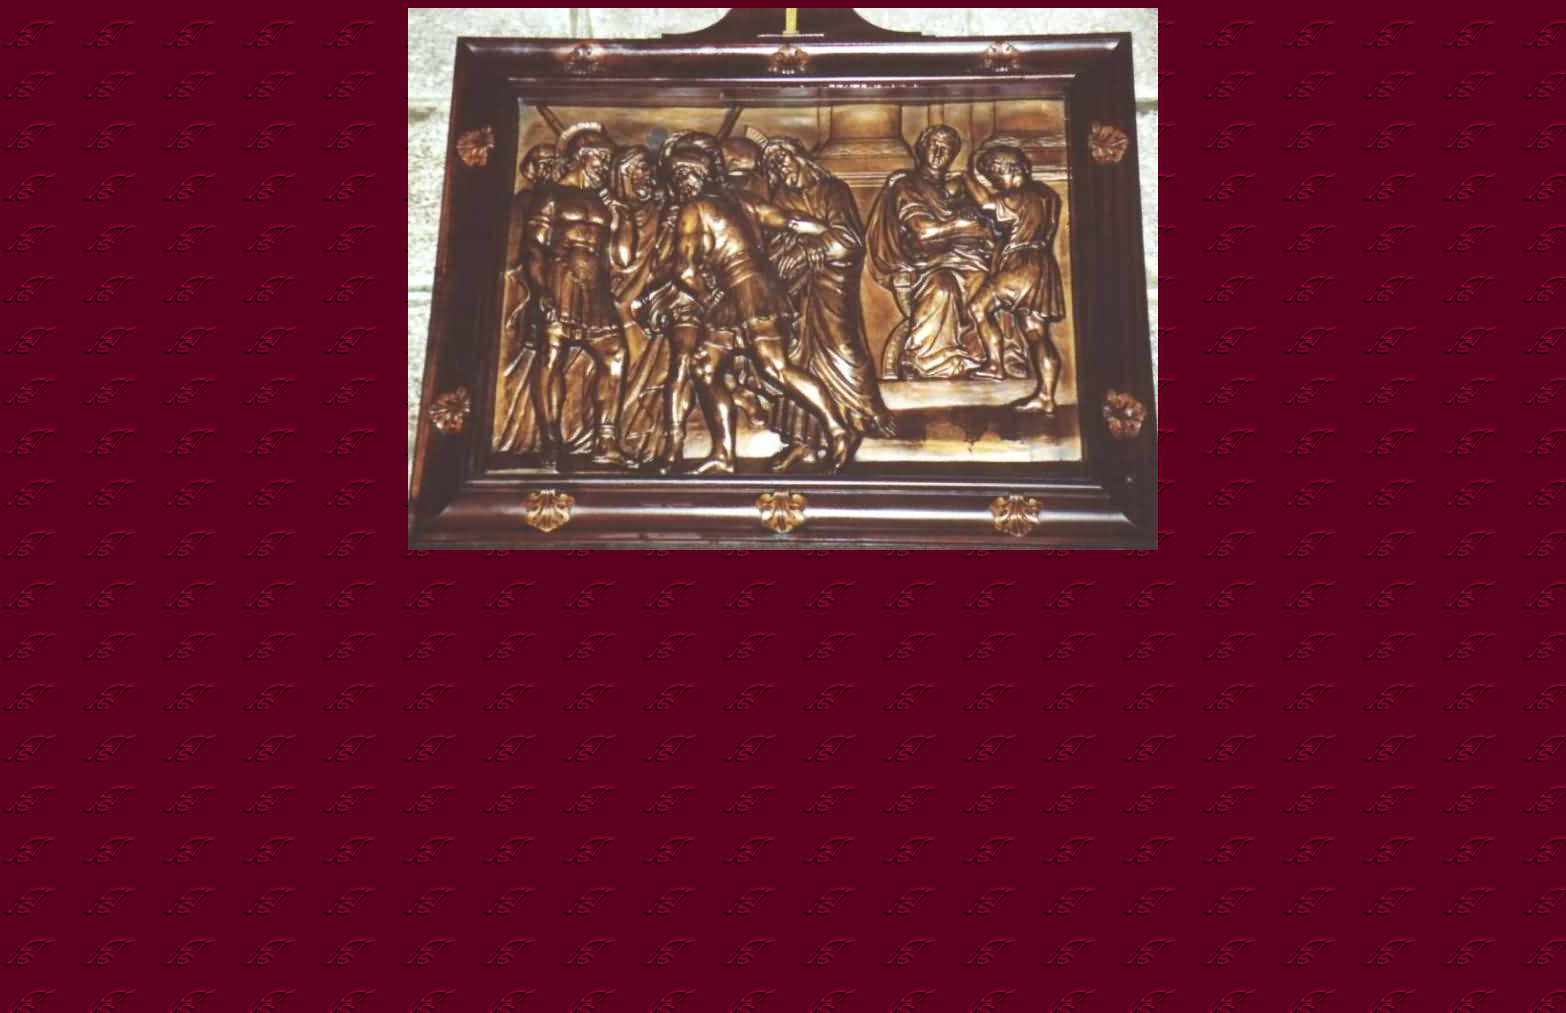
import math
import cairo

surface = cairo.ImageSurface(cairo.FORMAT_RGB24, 1566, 1013)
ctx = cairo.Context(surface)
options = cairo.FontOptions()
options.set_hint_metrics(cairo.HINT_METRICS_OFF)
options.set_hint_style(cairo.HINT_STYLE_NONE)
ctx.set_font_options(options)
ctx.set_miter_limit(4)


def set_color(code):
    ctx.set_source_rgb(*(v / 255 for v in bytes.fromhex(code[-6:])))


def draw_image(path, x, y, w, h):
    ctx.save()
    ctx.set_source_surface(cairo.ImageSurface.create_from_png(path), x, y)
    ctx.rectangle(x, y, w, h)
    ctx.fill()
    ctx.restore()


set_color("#ffffff")
ctx.paint()
draw_image("assets/img1.png", 0, 0, 1566, 1013)
draw_image("assets/img2.png", 408, 8, 750, 542)
surface.write_to_png("output.png")
